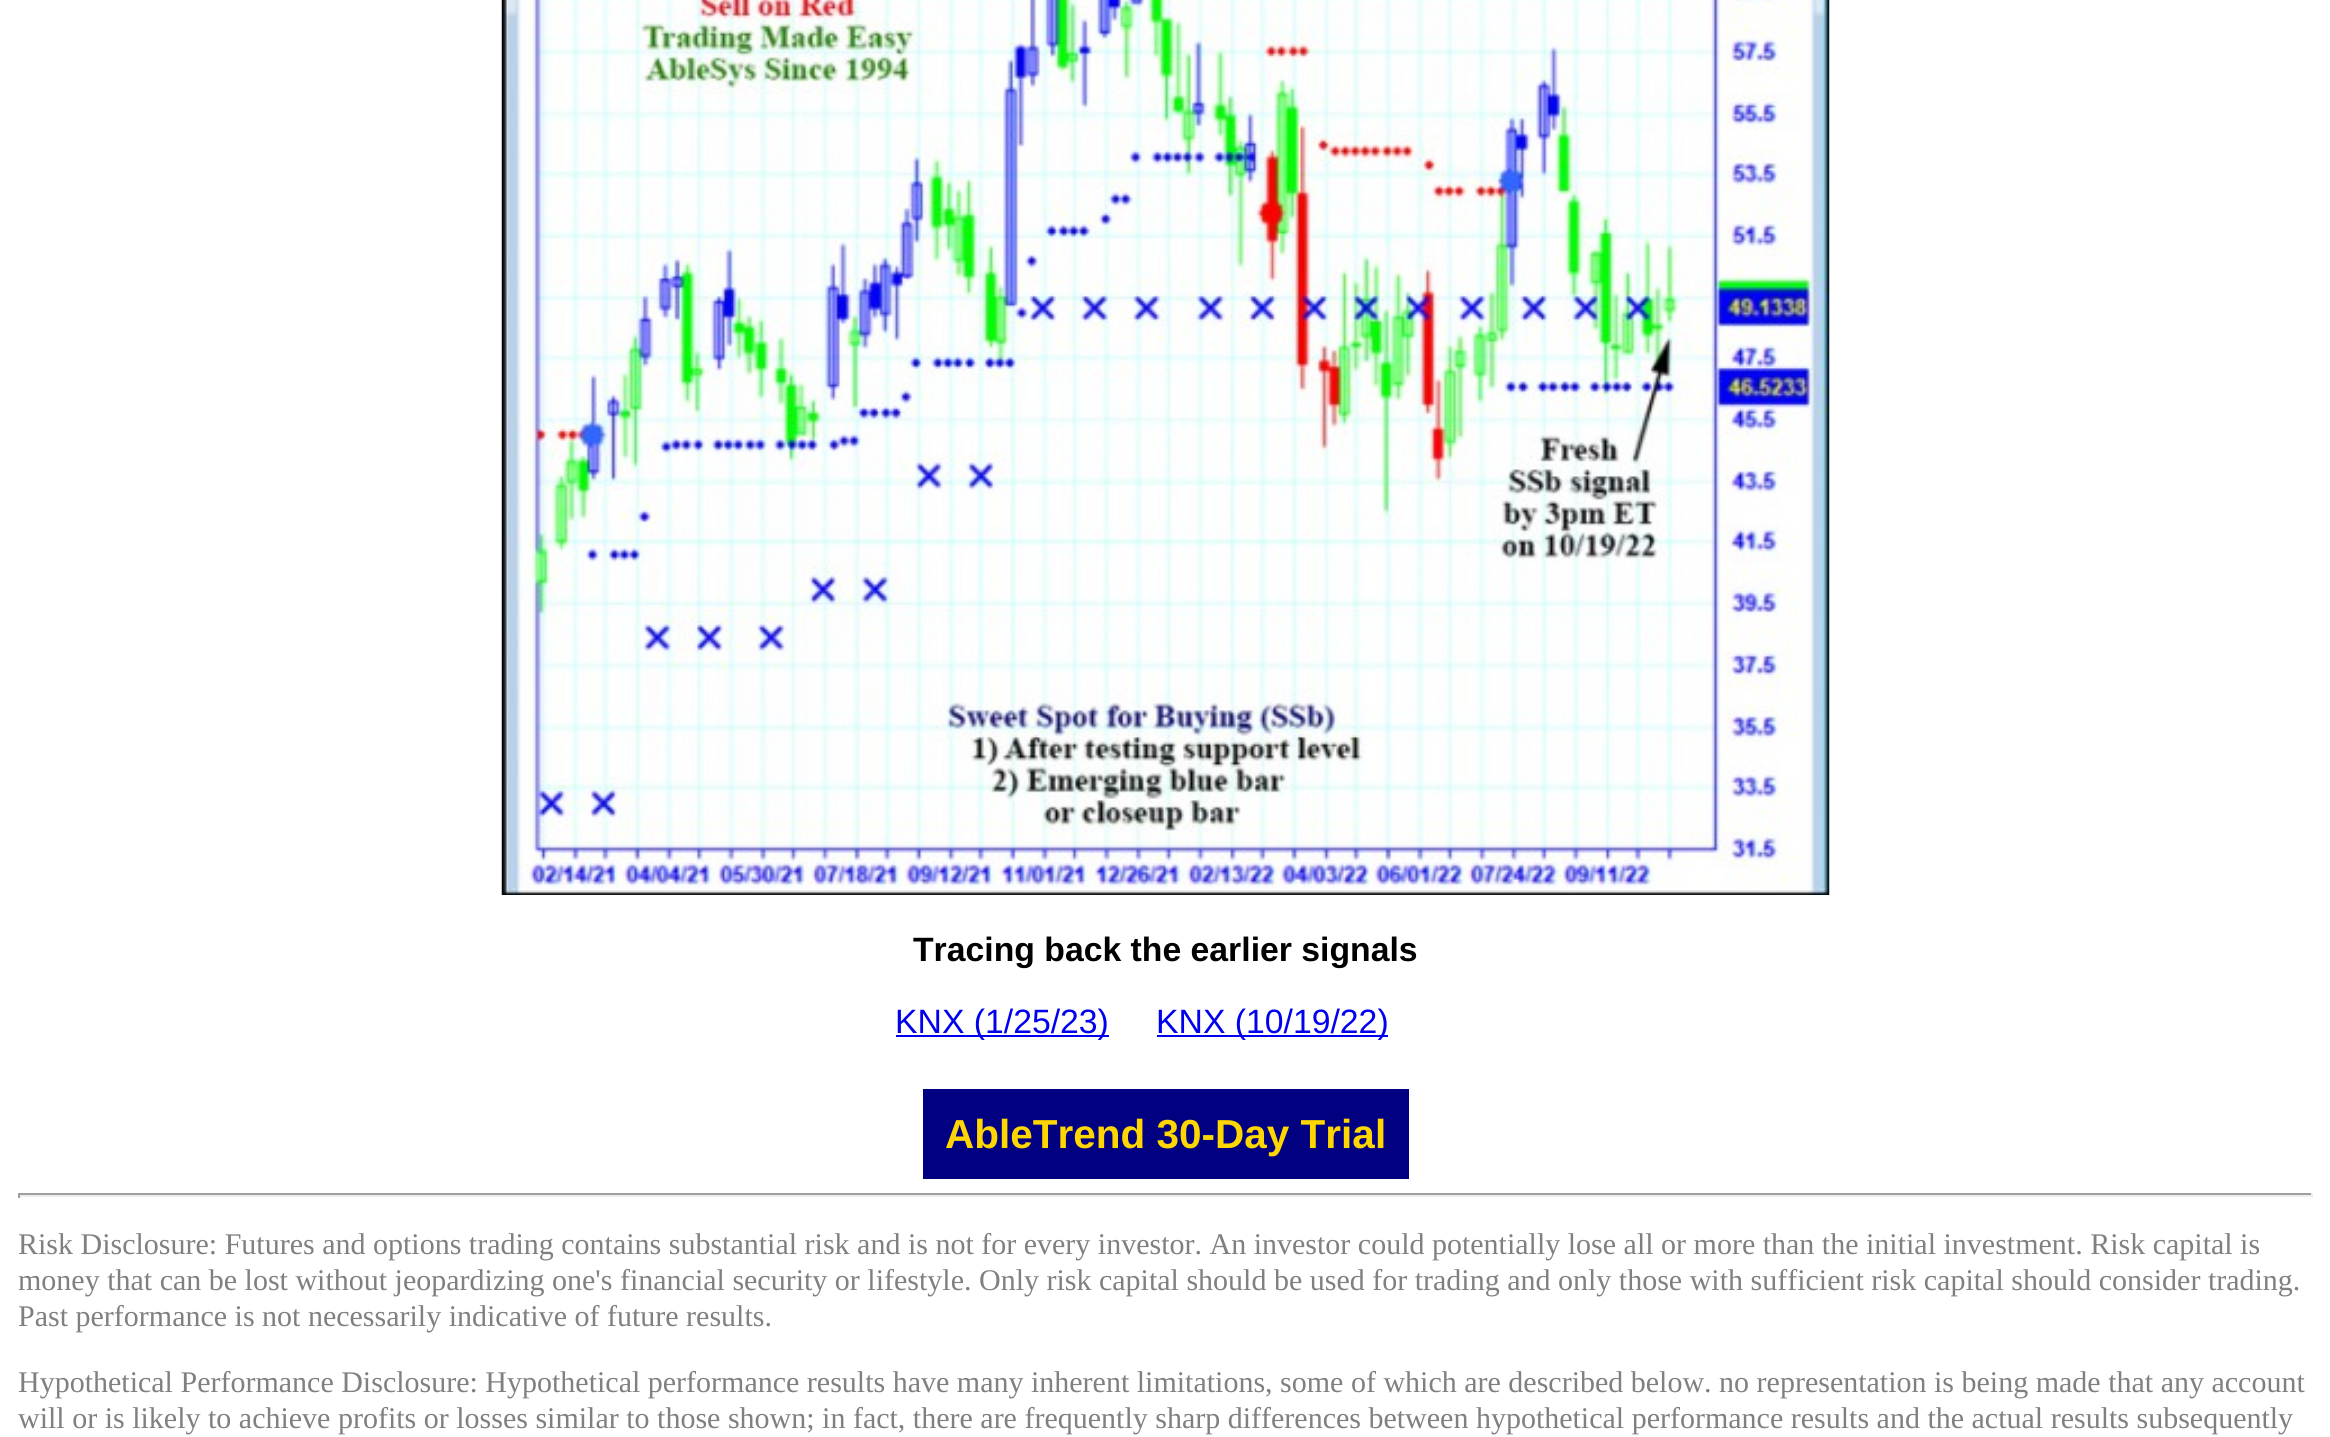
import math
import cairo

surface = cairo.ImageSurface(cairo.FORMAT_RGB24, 2330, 1437)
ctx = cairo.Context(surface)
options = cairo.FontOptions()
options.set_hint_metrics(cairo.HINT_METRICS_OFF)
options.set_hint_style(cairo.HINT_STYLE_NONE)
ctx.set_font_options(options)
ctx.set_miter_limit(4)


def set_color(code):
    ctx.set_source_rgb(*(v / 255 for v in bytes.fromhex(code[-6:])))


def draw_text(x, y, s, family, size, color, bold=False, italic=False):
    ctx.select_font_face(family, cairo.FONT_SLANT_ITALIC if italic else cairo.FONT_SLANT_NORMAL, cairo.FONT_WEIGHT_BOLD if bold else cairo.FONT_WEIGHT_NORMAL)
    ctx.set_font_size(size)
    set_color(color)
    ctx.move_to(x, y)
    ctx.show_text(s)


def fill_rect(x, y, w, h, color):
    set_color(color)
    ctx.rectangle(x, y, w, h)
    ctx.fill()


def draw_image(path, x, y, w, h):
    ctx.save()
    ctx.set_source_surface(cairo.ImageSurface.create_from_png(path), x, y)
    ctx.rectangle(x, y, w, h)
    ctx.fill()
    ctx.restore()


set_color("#ffffff")
ctx.paint()
draw_image("assets/img1.png", 501, 0, 1329, 895)
draw_text(913, 961, "Tracing back the earlier signals", "Liberation Sans", 33.75, "#000000", bold=True)
fill_rect(896, 1035, 213, 2, "#0000ee")
draw_text(895, 1033, "KNX (1/25/23)", "Liberation Sans", 33.75, "#0000ee")
fill_rect(1157, 1035, 231, 2, "#0000ee")
draw_text(1156, 1033, "KNX (10/19/22)", "Liberation Sans", 33.75, "#0000ee")
fill_rect(923, 1089, 486, 90, "#000080")
draw_text(945, 1148, "AbleTrend 30-Day Trial", "Liberation Sans", 40.5, "#ffd700", bold=True)
fill_rect(18, 1193, 2295, 2, "#9f9f9f")
fill_rect(2311, 1193, 2, 5, "#eeeeee")
fill_rect(18, 1195, 2295, 2, "#eeeeee")
fill_rect(18, 1193, 2, 5, "#9f9f9f")
draw_text(18, 1254, "Risk Disclosure: Futures and options trading contains substantial risk and is not for every investor. An investor could potentially lose all or more than the initial investment. Risk capital is", "Liberation Serif", 30, "#808080")
draw_text(18, 1290, "money that can be lost without jeopardizing one's financial security or lifestyle. Only risk capital should be used for trading and only those with sufficient risk capital should consider trading.", "Liberation Serif", 30, "#808080")
draw_text(18, 1326, "Past performance is not necessarily indicative of future results.", "Liberation Serif", 30, "#808080")
draw_text(18, 1392, "Hypothetical Performance Disclosure: Hypothetical performance results have many inherent limitations, some of which are described below. no representation is being made that any account", "Liberation Serif", 30, "#808080")
draw_text(18, 1428, "will or is likely to achieve profits or losses similar to those shown; in fact, there are frequently sharp differences between hypothetical performance results and the actual results subsequently", "Liberation Serif", 30, "#808080")
surface.write_to_png("output.png")
